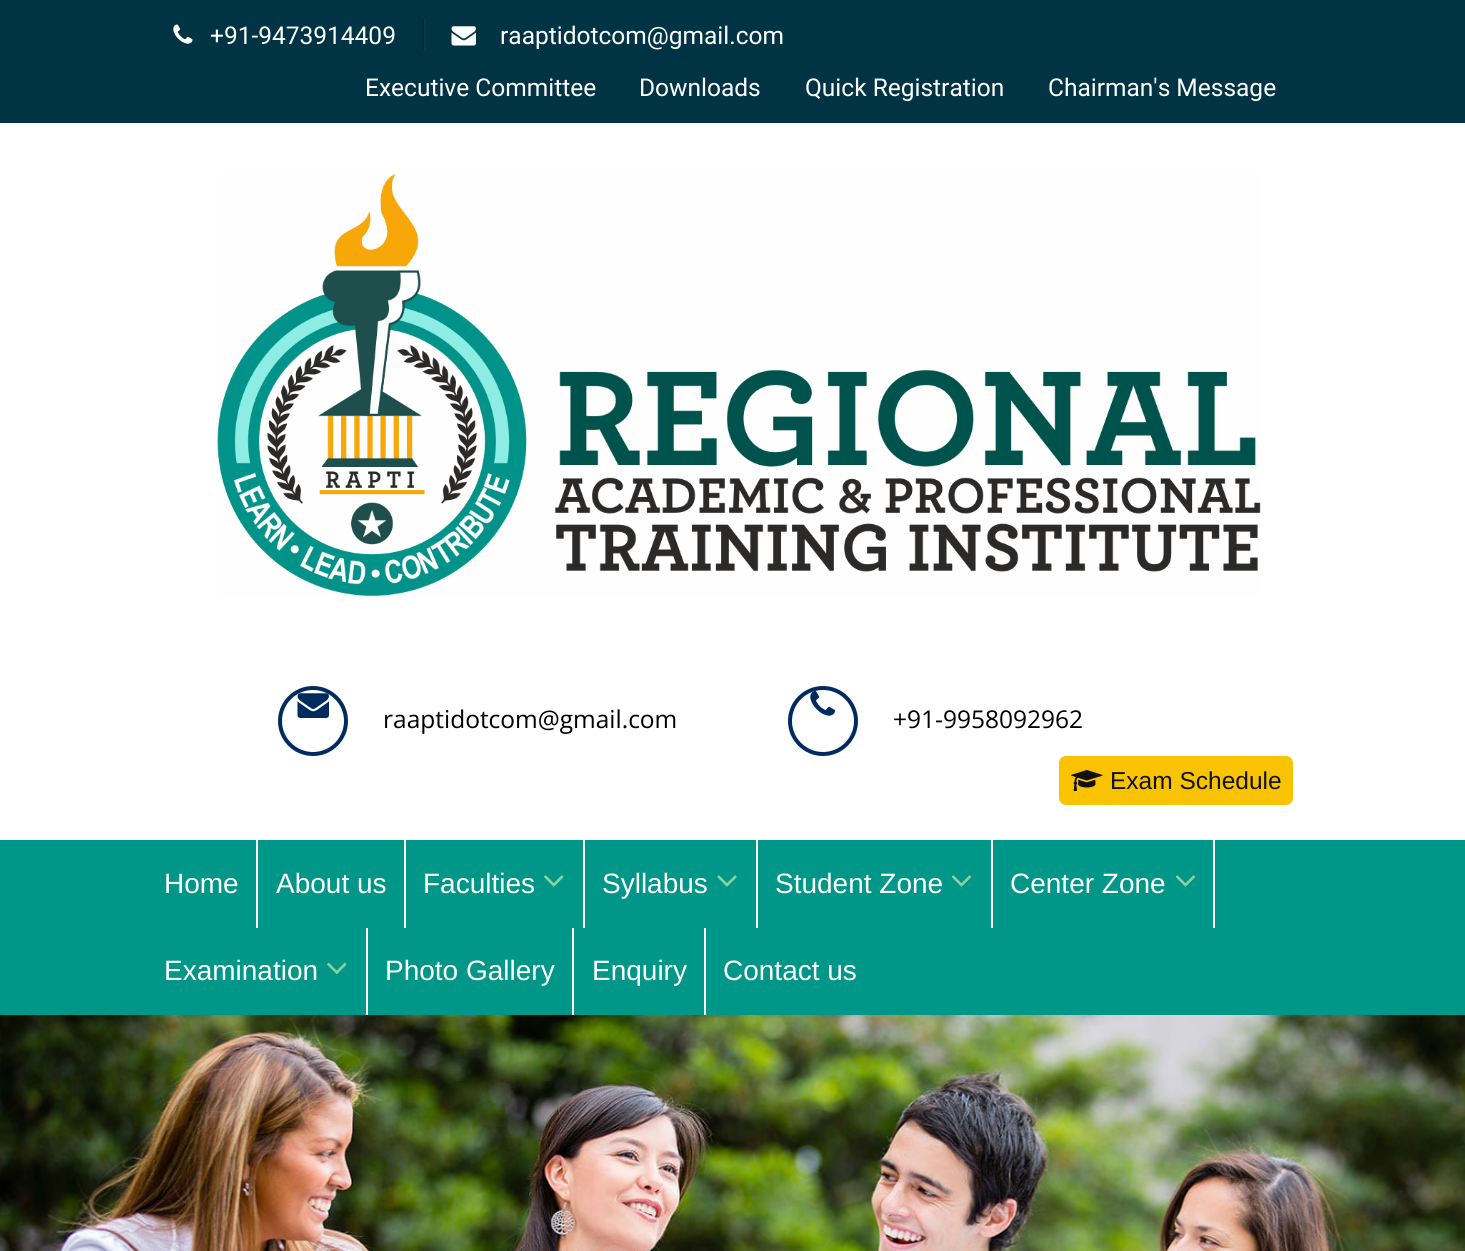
import math
import cairo

surface = cairo.ImageSurface(cairo.FORMAT_RGB24, 1465, 1251)
ctx = cairo.Context(surface)
options = cairo.FontOptions()
options.set_hint_metrics(cairo.HINT_METRICS_OFF)
options.set_hint_style(cairo.HINT_STYLE_NONE)
ctx.set_font_options(options)
ctx.set_miter_limit(4)


def set_color(code):
    ctx.set_source_rgb(*(v / 255 for v in bytes.fromhex(code[-6:])))


def draw_text(x, y, s, family, size, color, bold=False, italic=False):
    ctx.select_font_face(family, cairo.FONT_SLANT_ITALIC if italic else cairo.FONT_SLANT_NORMAL, cairo.FONT_WEIGHT_BOLD if bold else cairo.FONT_WEIGHT_NORMAL)
    ctx.set_font_size(size)
    set_color(color)
    ctx.move_to(x, y)
    ctx.show_text(s)


def fill_rect(x, y, w, h, color):
    set_color(color)
    ctx.rectangle(x, y, w, h)
    ctx.fill()


def rounded_rect(x, y, w, h, r):
    ctx.new_sub_path()
    for i, (u, v) in enumerate([(x + w - r, y + h - r), (x + r, y + h - r), (x + r, y + r), (x + w - r, y + r)]):
        ctx.arc(u, v, r, i * math.pi / 2, (i + 1) * math.pi / 2)
    ctx.close_path()


def draw_image(path, x, y, w, h):
    ctx.save()
    ctx.set_source_surface(cairo.ImageSurface.create_from_png(path), x, y)
    ctx.rectangle(x, y, w, h)
    ctx.fill()
    ctx.restore()


set_color("#ffffff")
ctx.paint()
fill_rect(0, 0, 1465, 123, "#003445")
fill_rect(422, 19, 2, 32, "#012a38")
draw_image("assets/img1.png", 173, 24, 20, 20)
draw_text(210, 44, "+91-9473914409", "Roboto", 24.5, "#ffffff")
fill_rect(424, 19, 2, 32, "#013b4e")
draw_image("assets/img2.png", 451, 26, 25, 20)
draw_text(500, 44, "raaptidotcom@gmail.com", "Roboto", 24.5, "#ffffff")
draw_text(365, 96, "Executive Committee", "Roboto", 24.5, "#ffffff")
draw_text(639, 96, "Downloads", "Roboto", 24.5, "#ffffff")
draw_text(805, 96, "Quick Registration", "Roboto", 24.5, "#ffffff")
draw_text(1048, 96, "Chairman's Message", "Roboto", 24.5, "#ffffff")
draw_image("assets/img3.png", 217, 174, 1044, 423)
ctx.arc(313, 721, 33, 0, 2 * math.pi)
set_color("#002b5e")
ctx.set_line_width(4)
ctx.stroke()
draw_image("assets/img4.png", 297, 693, 32, 25)
draw_text(383, 728, "raaptidotcom@gmail.com", "Open Sans", 24.5, "#000000")
ctx.new_path()
ctx.arc(823, 721, 33, 0, 2 * math.pi)
set_color("#002b5e")
ctx.stroke()
draw_image("assets/img5.png", 810, 691, 25, 25)
draw_text(893, 728, "+91-9958092962", "Open Sans", 24.5, "#000000")
set_color("#f9c301")
rounded_rect(1059, 756, 234, 49, 7)
ctx.fill()
draw_image("assets/img6.png", 1071, 770, 32, 21)
draw_text(1110, 789, "Exam Schedule", "Liberation Sans", 24.5, "#111111")
fill_rect(0, 840, 1465, 175, "#009688")
fill_rect(256, 840, 2, 88, "#ffffff")
draw_text(164, 893, "Home", "Liberation Sans", 28, "#ffffff")
fill_rect(404, 840, 2, 88, "#ffffff")
draw_text(276, 893, "About us", "Liberation Sans", 28, "#ffffff")
fill_rect(583, 840, 2, 88, "#ffffff")
draw_text(423, 893, "Faculties", "Liberation Sans", 28, "#ffffff")
draw_image("assets/img7.png", 544, 875, 20, 12)
fill_rect(756, 840, 2, 88, "#ffffff")
draw_text(602, 893, "Syllabus", "Liberation Sans", 28, "#ffffff")
draw_image("assets/img8.png", 717, 875, 20, 12)
fill_rect(991, 840, 2, 88, "#ffffff")
draw_text(775, 893, "Student Zone", "Liberation Sans", 28, "#ffffff")
draw_image("assets/img9.png", 951, 875, 21, 12)
fill_rect(1213, 840, 2, 88, "#ffffff")
draw_text(1010, 893, "Center Zone", "Liberation Sans", 28, "#ffffff")
draw_image("assets/img9.png", 1175, 875, 21, 12)
fill_rect(366, 928, 2, 87, "#ffffff")
draw_text(164, 980, "Examination", "Liberation Sans", 28, "#ffffff")
draw_image("assets/img10.png", 327, 962, 20, 13)
fill_rect(572, 928, 2, 87, "#ffffff")
draw_text(385, 980, "Photo Gallery", "Liberation Sans", 28, "#ffffff")
fill_rect(704, 928, 2, 87, "#ffffff")
draw_text(592, 980, "Enquiry", "Liberation Sans", 28, "#ffffff")
draw_text(723, 980, "Contact us", "Liberation Sans", 28, "#ffffff")
draw_image("assets/img11.png", 0, 1015, 1465, 236)
surface.write_to_png("output.png")
